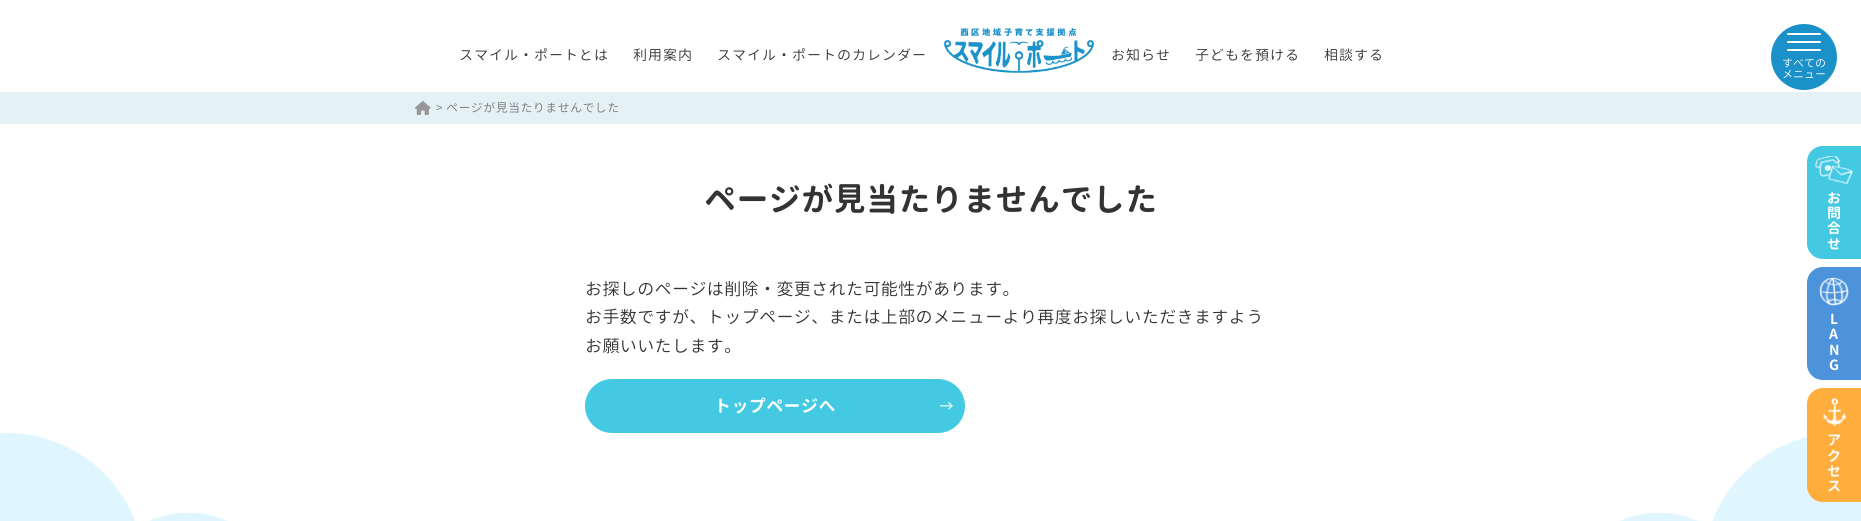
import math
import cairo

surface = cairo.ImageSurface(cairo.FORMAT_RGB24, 1861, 521)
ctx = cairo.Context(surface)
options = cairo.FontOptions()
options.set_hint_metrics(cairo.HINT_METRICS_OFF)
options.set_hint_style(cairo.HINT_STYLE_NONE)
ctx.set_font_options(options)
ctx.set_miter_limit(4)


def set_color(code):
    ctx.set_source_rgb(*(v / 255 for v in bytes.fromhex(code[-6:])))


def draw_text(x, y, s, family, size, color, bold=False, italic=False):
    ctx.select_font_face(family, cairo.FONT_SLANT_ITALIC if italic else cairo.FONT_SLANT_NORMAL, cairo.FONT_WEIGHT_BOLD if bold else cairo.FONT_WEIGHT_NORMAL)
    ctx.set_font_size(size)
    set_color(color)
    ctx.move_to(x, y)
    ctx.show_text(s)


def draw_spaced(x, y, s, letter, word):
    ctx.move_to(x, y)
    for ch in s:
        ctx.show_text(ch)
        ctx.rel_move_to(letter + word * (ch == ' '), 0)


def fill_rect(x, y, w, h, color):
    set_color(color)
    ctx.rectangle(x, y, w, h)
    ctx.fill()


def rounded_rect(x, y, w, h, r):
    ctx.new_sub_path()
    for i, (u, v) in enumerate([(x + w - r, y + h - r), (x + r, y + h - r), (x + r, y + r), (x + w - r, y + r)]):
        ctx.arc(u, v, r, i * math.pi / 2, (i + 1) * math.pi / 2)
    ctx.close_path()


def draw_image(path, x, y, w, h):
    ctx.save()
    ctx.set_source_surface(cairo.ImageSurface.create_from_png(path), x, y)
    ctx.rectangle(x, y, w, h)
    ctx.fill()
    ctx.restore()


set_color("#ffffff")
ctx.paint()
ctx.select_font_face("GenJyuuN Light")
ctx.set_font_size(14)
set_color("#333333")
draw_spaced(459, 60, "スマイル・ポートとは", 1, 0)
draw_spaced(633, 60, "利用案内", 1, 0)
draw_spaced(717, 60, "スマイル・ポートのカレンダー", 1, 0)
draw_image("assets/img1.png", 944, 28, 150, 45)
draw_spaced(1111, 60, "お知らせ", 1, 0)
draw_spaced(1195, 60, "子どもを預ける", 1, 0)
draw_spaced(1324, 60, "相談する", 1, 0)
set_color("#1a92c9")
ctx.new_path()
ctx.arc(1804, 57, 33, 0, 2 * math.pi)
ctx.fill()
set_color("#ffffff")
rounded_rect(1787, 33, 34, 2, 1)
ctx.fill()
rounded_rect(1787, 41, 34, 2, 1)
ctx.fill()
rounded_rect(1787, 49, 34, 2, 1)
ctx.fill()
draw_text(1782, 67, "すべての", "GenJyuuN Light", 11, "#ffffff")
draw_text(1782, 78, "メニュー", "GenJyuuN Light", 11, "#ffffff")
fill_rect(0, 92, 1861, 32, "#e5f2f5")
draw_image("assets/img2.png", 415, 101, 16, 14)
ctx.set_font_size(12)
set_color("#777777")
draw_spaced(436, 112, "> ページが見当たりませんでした", 0.4, 0)
ctx.select_font_face("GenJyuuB", cairo.FONT_SLANT_NORMAL, cairo.FONT_WEIGHT_BOLD)
ctx.set_font_size(32)
set_color("#333333")
draw_spaced(704, 211, "ページが見当たりませんでした", 0.4, 0)
ctx.select_font_face("GenJyuuN Light")
ctx.set_font_size(17)
draw_spaced(585, 295, "お探しのページは削除・変更された可能性があります。", 0.4, 0)
draw_spaced(585, 323, "お手数ですが、トップページ、または上部のメニューより再度お探しいただきますよう", 0.4, 0)
draw_spaced(585, 352, "お願いいたします。", 0.4, 0)
set_color("#44c9e2")
rounded_rect(585, 379, 380, 54, 27)
ctx.fill()
ctx.select_font_face("GenJyuuB", cairo.FONT_SLANT_NORMAL, cairo.FONT_WEIGHT_BOLD)
set_color("#ffffff")
draw_spaced(714, 412, "トップページへ", 0.4, 0)
draw_image("assets/img3.png", 940, 402, 13, 8)
set_color("#44c9e2")
ctx.new_path()
ctx.move_to(1823, 146)
ctx.line_to(1861, 146)
ctx.line_to(1861, 259)
ctx.line_to(1823, 259)
ctx.curve_to(1814, 259, 1807, 252, 1807, 243)
ctx.line_to(1807, 162)
ctx.curve_to(1807, 153, 1814, 146, 1823, 146)
ctx.close_path()
ctx.fill()
draw_image("assets/img4.png", 1815, 156, 38, 29)
ctx.set_font_size(14)
set_color("#ffffff")
draw_spaced(1827, 203, "お", 0.4, 0)
draw_spaced(1827, 218, "問", 0.4, 0)
draw_spaced(1827, 233, "合", 0.4, 0)
draw_spaced(1827, 249, "せ", 0.4, 0)
set_color("#4c93db")
ctx.new_path()
ctx.move_to(1823, 267)
ctx.line_to(1861, 267)
ctx.line_to(1861, 380)
ctx.line_to(1823, 380)
ctx.curve_to(1814, 380, 1807, 373, 1807, 364)
ctx.line_to(1807, 283)
ctx.curve_to(1807, 274, 1814, 267, 1823, 267)
ctx.close_path()
ctx.fill()
draw_image("assets/img5.png", 1819, 277, 30, 29)
set_color("#ffffff")
draw_spaced(1830, 324, "L", 0.4, 0)
draw_spaced(1829, 339, "A", 0.4, 0)
draw_spaced(1829, 355, "N", 0.4, 0)
draw_spaced(1829, 370, "G", 0.4, 0)
draw_image("assets/img7.png", 0, 433, 1861, 88)
set_color("#ffad3c")
ctx.new_path()
ctx.move_to(1823, 388)
ctx.line_to(1861, 388)
ctx.line_to(1861, 502)
ctx.line_to(1823, 502)
ctx.curve_to(1814, 502, 1807, 495, 1807, 486)
ctx.line_to(1807, 404)
ctx.curve_to(1807, 395, 1814, 388, 1823, 388)
ctx.close_path()
ctx.fill()
draw_image("assets/img6.png", 1823, 398, 23, 28)
set_color("#ffffff")
draw_spaced(1827, 445, "ア", 0.4, 0)
draw_spaced(1827, 461, "ク", 0.4, 0)
draw_spaced(1827, 476, "セ", 0.4, 0)
draw_spaced(1827, 491, "ス", 0.4, 0)
surface.write_to_png("output.png")
